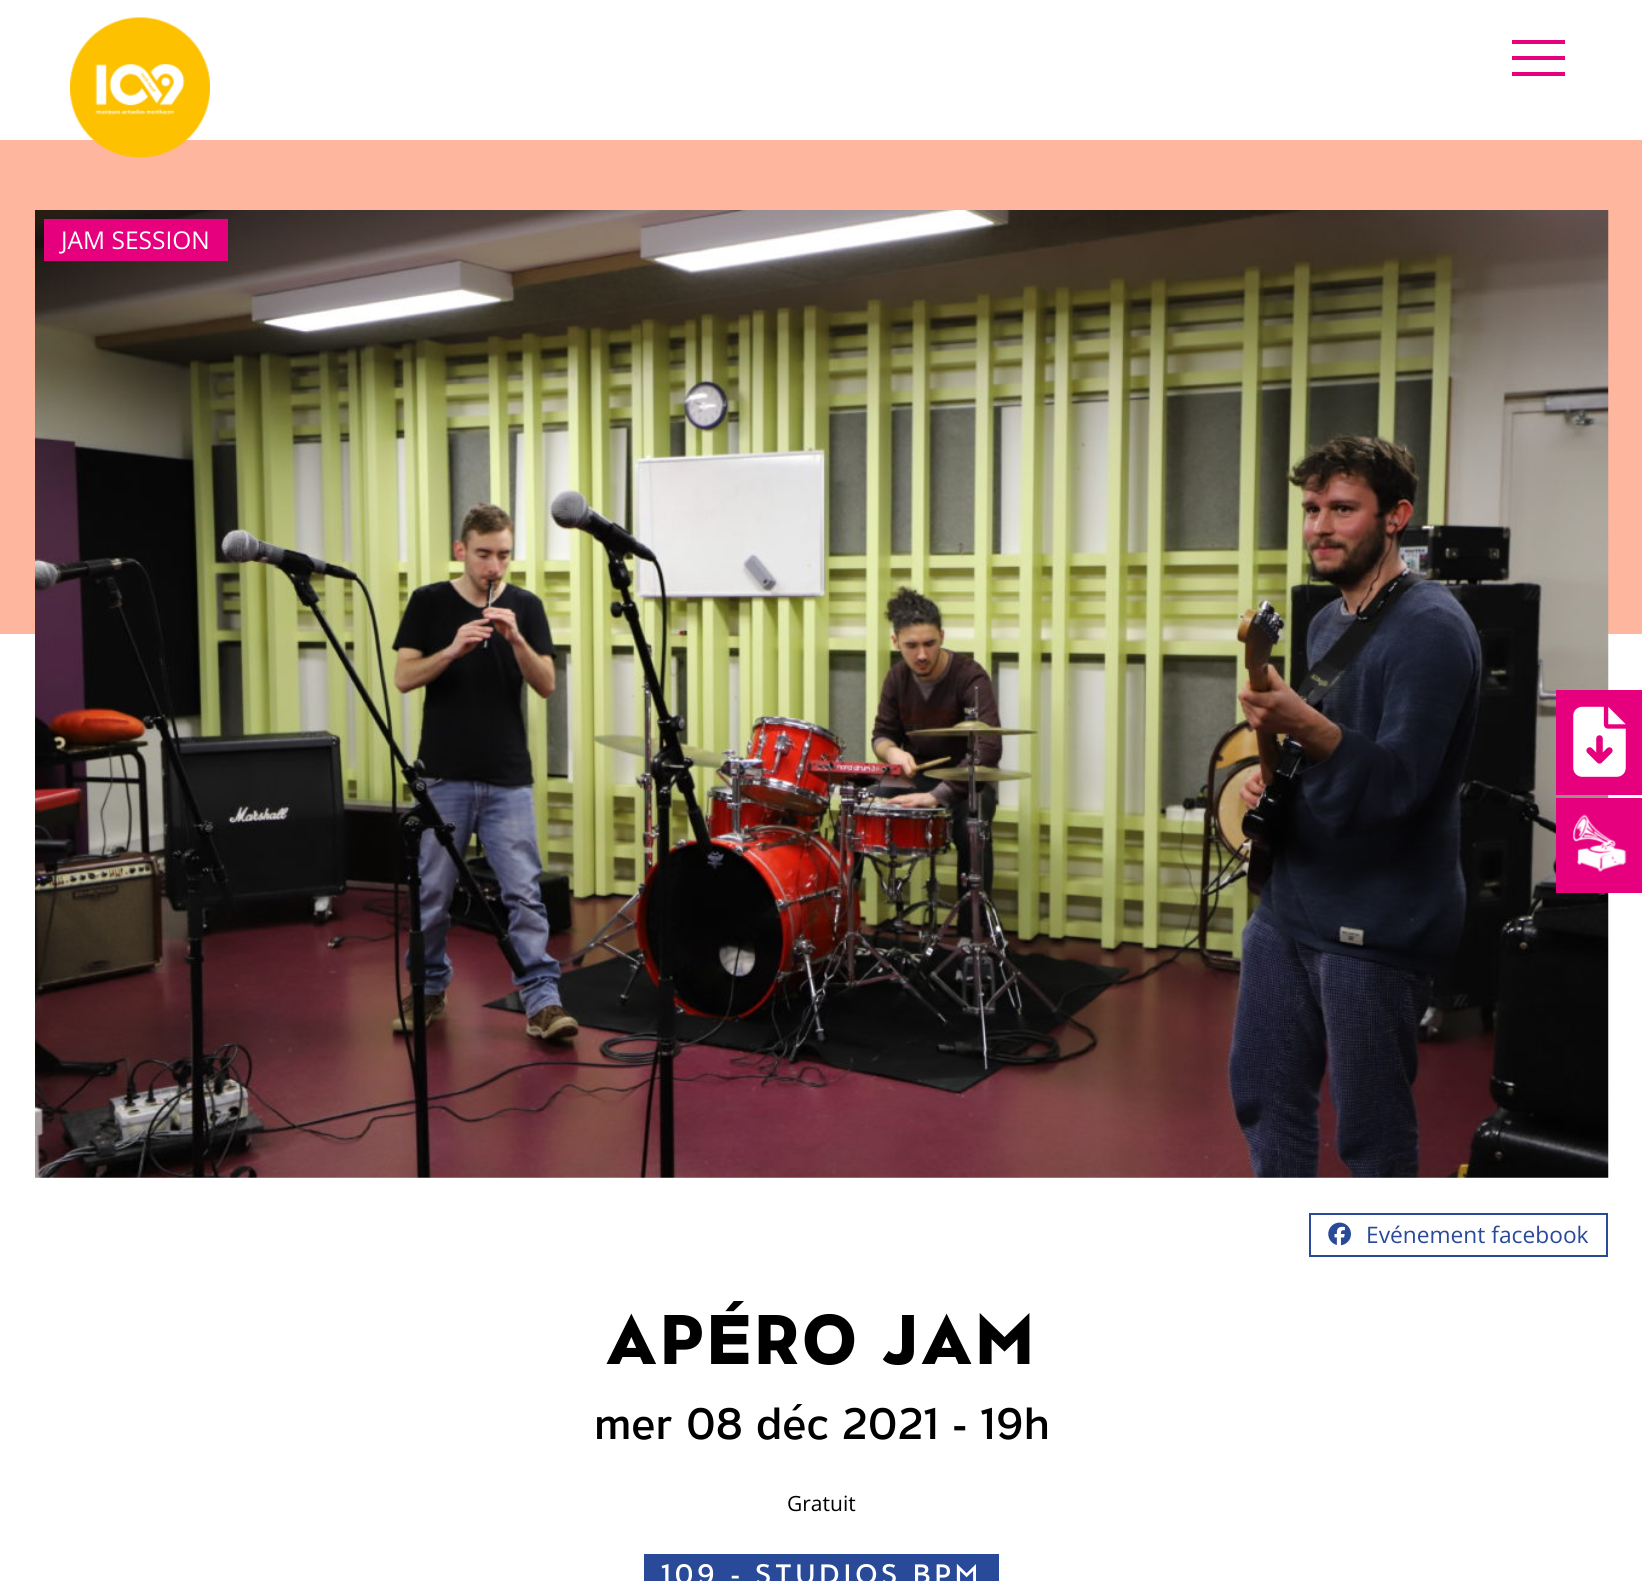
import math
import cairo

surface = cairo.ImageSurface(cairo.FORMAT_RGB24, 1642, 1581)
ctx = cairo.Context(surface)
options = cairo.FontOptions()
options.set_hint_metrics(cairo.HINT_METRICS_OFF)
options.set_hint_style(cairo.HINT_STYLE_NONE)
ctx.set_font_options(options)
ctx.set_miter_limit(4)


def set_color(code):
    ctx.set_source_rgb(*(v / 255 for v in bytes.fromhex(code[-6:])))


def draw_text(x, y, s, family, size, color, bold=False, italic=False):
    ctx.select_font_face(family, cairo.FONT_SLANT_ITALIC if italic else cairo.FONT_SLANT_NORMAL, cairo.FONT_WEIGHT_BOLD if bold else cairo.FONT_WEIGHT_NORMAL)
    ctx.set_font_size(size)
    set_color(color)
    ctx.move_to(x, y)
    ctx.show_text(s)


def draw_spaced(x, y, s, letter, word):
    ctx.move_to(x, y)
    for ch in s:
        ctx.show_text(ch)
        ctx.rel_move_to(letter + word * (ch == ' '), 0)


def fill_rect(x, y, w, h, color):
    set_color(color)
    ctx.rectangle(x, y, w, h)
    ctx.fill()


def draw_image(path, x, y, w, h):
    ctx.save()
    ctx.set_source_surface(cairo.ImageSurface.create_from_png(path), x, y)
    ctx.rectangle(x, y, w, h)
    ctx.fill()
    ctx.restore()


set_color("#ffffff")
ctx.paint()
fill_rect(0, 140, 1642, 494, "#ffb69e")
draw_image("assets/img1.png", 70, 17, 140, 141)
fill_rect(1512, 40, 53, 4, "#e6007e")
fill_rect(1512, 56, 53, 4, "#e6007e")
fill_rect(1512, 72, 53, 4, "#e6007e")
draw_image("assets/img2.png", 35, 210, 1574, 968)
fill_rect(44, 219, 184, 42, "#e6007e")
draw_text(61, 249, "JAM SESSION", "Open Sans", 24.5, "#ffffff")
ctx.rectangle(1310, 1214, 297, 42)
set_color("#294a99")
ctx.stroke()
draw_image("assets/img3.png", 1328, 1222, 23, 24)
draw_text(1366, 1243, "Evénement facebook", "Open Sans", 22.75, "#294a99")
ctx.select_font_face("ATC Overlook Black")
ctx.set_font_size(70)
set_color("#000000")
draw_spaced(606, 1364, "APÉRO JAM", 3.5, 0)
draw_text(594, 1439, "mer 08 déc 2021 - 19h", "ATC Overlook Medium", 43.75, "#000000")
draw_text(787, 1511, "Gratuit", "Open Sans", 21, "#000000")
fill_rect(644, 1554, 355, 27, "#294a99")
ctx.select_font_face("ATC Overlook Medium")
ctx.set_font_size(28)
set_color("#ffffff")
draw_spaced(661, 1584, "109 - STUDIOS BPM", 3.5, 0)
fill_rect(1556, 690, 86, 105, "#e6007e")
draw_image("assets/img4.png", 1573, 706, 53, 71)
fill_rect(1556, 798, 86, 95, "#e6007e")
draw_image("assets/img5.png", 1573, 814, 54, 58)
surface.write_to_png("output.png")
